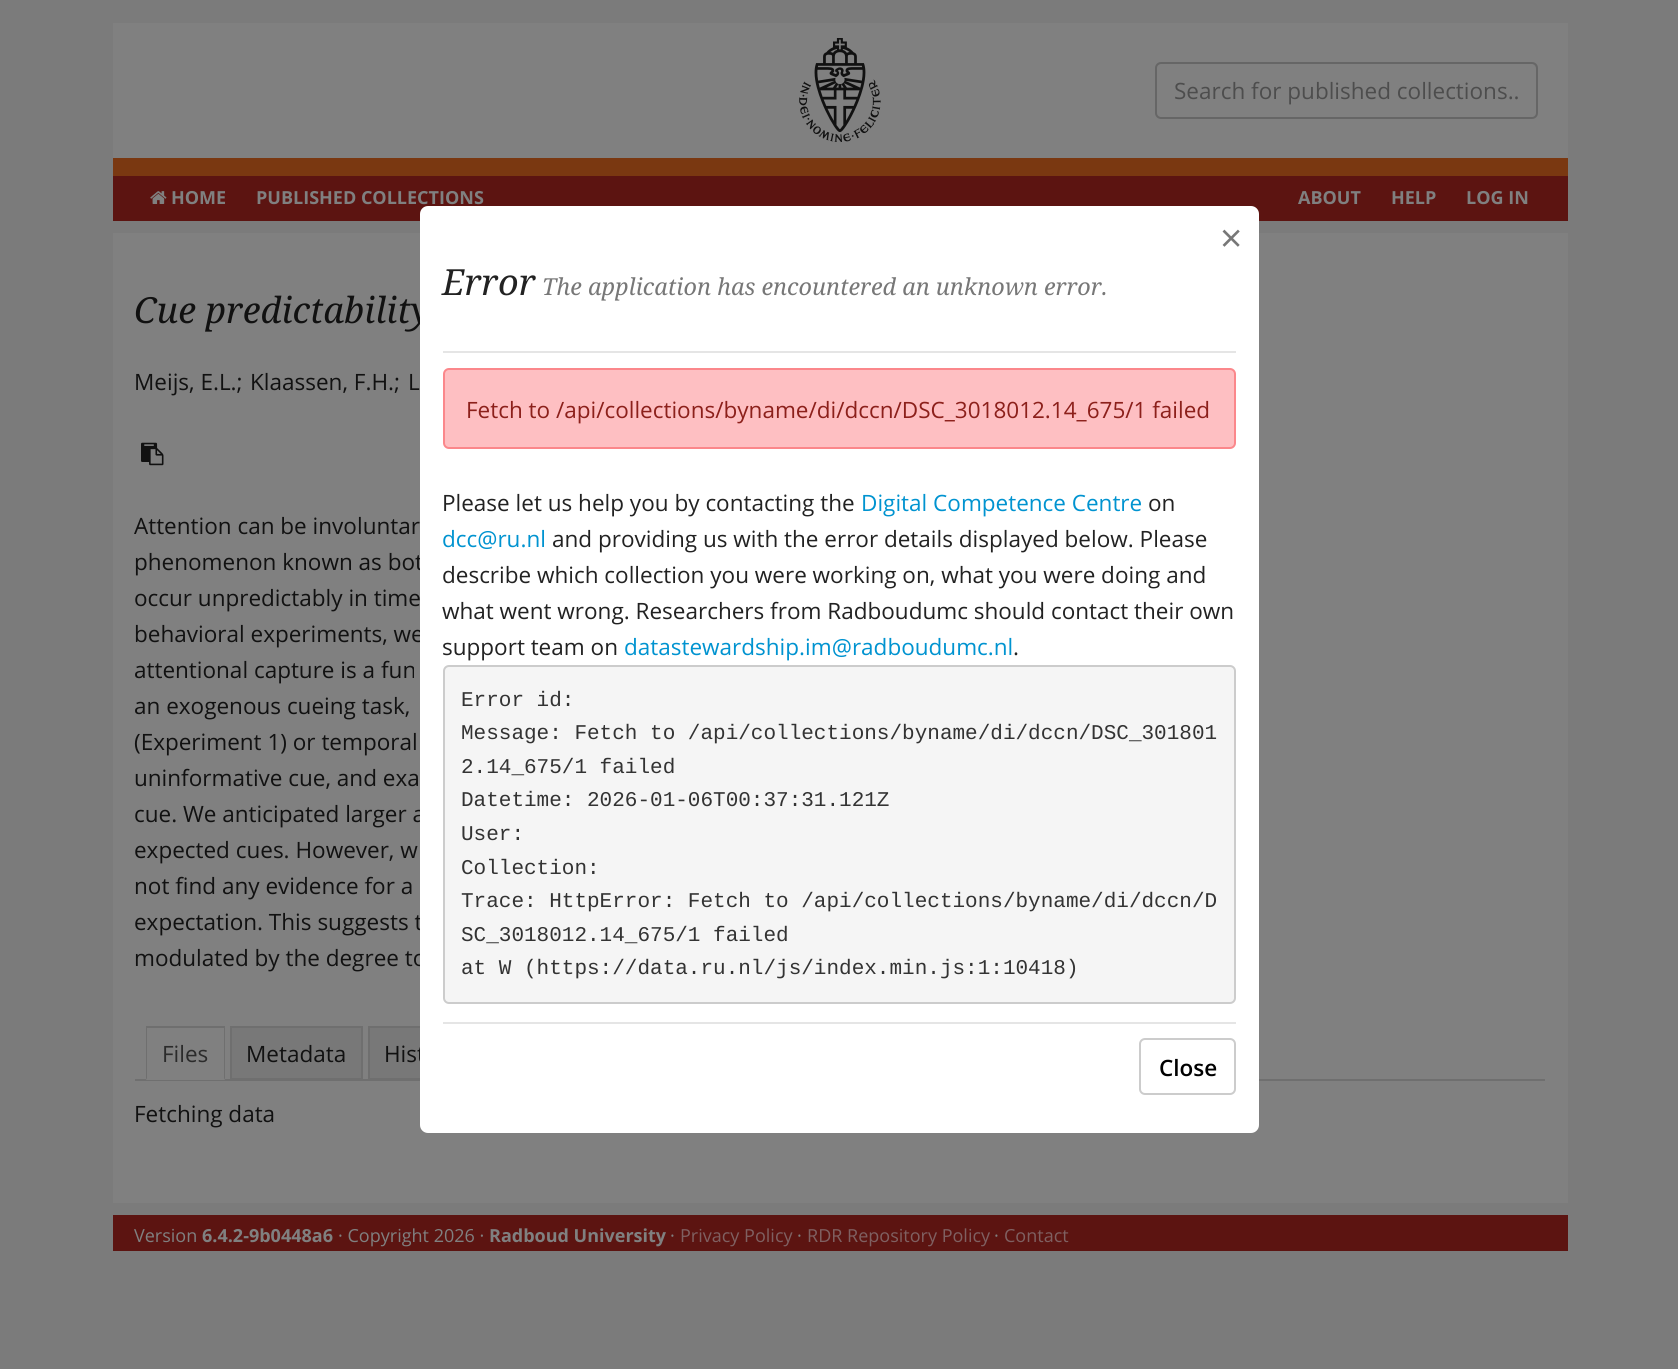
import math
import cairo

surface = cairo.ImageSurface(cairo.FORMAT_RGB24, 1678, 1369)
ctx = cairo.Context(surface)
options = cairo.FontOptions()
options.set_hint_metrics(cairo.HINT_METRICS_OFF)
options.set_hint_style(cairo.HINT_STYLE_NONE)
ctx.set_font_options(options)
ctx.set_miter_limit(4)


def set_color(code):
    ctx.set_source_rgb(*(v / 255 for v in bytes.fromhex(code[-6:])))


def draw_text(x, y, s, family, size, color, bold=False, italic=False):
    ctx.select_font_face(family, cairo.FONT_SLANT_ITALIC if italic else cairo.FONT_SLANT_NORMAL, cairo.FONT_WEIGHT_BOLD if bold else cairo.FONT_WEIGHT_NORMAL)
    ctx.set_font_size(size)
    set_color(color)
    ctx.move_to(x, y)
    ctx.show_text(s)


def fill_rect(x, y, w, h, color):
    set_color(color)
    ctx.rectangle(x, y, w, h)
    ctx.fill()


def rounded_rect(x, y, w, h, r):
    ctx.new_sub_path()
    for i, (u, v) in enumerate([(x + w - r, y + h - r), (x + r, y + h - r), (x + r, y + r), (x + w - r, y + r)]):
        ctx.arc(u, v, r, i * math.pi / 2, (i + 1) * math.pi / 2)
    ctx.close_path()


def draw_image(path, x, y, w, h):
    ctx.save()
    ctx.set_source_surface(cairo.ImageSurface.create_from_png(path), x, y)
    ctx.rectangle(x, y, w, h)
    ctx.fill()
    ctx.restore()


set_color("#7b7b7b")
ctx.paint()
fill_rect(113, 23, 1455, 135, "#808080")
draw_image("assets/img1.png", 799, 38, 82, 104)
set_color("#767676")
ctx.new_path()
ctx.move_to(1161, 64)
ctx.line_to(1532, 64)
ctx.curve_to(1534, 64, 1536, 67, 1536, 69)
ctx.line_to(1536, 68)
ctx.curve_to(1536, 65, 1534, 63, 1531, 63)
ctx.line_to(1162, 63)
ctx.curve_to(1160, 63, 1158, 64, 1157, 66)
ctx.curve_to(1158, 65, 1160, 64, 1161, 64)
ctx.close_path()
ctx.fill()
rounded_rect(1156, 63, 381, 55, 5)
set_color("#666666")
ctx.stroke()
draw_text(1174, 99, "Search for published collections..", "Open Sans", 22.5, "#4d4d4d")
fill_rect(113, 176, 1455, 45, "#5c1411")
fill_rect(113, 158, 1455, 18, "#7a3811")
draw_image("assets/img2.png", 150, 191, 17, 13)
draw_text(171, 204, "HOME", "Open Sans", 18, "#808080", bold=True)
draw_text(256, 204, "PUBLISHED COLLECTIONS", "Open Sans", 18, "#808080", bold=True)
draw_text(1298, 204, "ABOUT", "Open Sans", 18, "#808080", bold=True)
draw_text(1391, 204, "HELP", "Open Sans", 18, "#808080", bold=True)
draw_text(1466, 204, "LOG IN", "Open Sans", 18, "#808080", bold=True)
fill_rect(113, 233, 1455, 970, "#808080")
draw_text(134, 323, "Cue predictability", "Noto Serif", 36, "#111111", italic=True)
draw_text(134, 390, "Meijs, E.L.;", "Open Sans", 22.5, "#111111")
draw_text(250, 390, "Klaassen, F.H.;", "Open Sans", 22.5, "#111111")
draw_text(408, 390, "L", "Open Sans", 22.5, "#111111")
draw_image("assets/img3.png", 141, 442, 23, 24)
draw_text(134, 534, "Attention can be involuntar", "Open Sans", 22.5, "#111111")
draw_text(134, 570, "phenomenon known as bot", "Open Sans", 22.5, "#111111")
draw_text(134, 606, "occur unpredictably in time", "Open Sans", 22.5, "#111111")
draw_text(134, 642, "behavioral experiments, we", "Open Sans", 22.5, "#111111")
draw_text(134, 678, "attentional capture is a fun", "Open Sans", 22.5, "#111111")
draw_text(134, 714, "an exogenous cueing task,", "Open Sans", 22.5, "#111111")
draw_text(134, 750, "(Experiment 1) or temporal", "Open Sans", 22.5, "#111111")
draw_text(134, 786, "uninformative cue, and exa", "Open Sans", 22.5, "#111111")
draw_text(134, 822, "cue. We anticipated larger a", "Open Sans", 22.5, "#111111")
draw_text(134, 858, "expected cues. However, w", "Open Sans", 22.5, "#111111")
draw_text(134, 894, "not find any evidence for a", "Open Sans", 22.5, "#111111")
draw_text(134, 930, "expectation. This suggests t", "Open Sans", 22.5, "#111111")
draw_text(134, 966, "modulated by the degree to", "Open Sans", 22.5, "#111111")
fill_rect(135, 1079, 1410, 2, "#6f6f6f")
fill_rect(146, 1079, 79, 1, "#808080")
fill_rect(146, 1026, 79, 2, "#6f6f6f")
ctx.new_path()
ctx.move_to(225, 1026)
ctx.line_to(225, 1080)
ctx.line_to(224, 1078)
ctx.line_to(224, 1028)
ctx.close_path()
ctx.fill()
ctx.new_path()
ctx.move_to(146, 1080)
ctx.line_to(146, 1026)
ctx.line_to(147, 1028)
ctx.line_to(147, 1078)
ctx.close_path()
ctx.fill()
draw_text(162, 1062, "Files", "Open Sans", 22.5, "#2b2b2b")
set_color("#787878")
ctx.rectangle(231, 1027, 131, 52)
ctx.fill_preserve()
set_color("#6f6f6f")
ctx.stroke()
draw_text(246, 1062, "Metadata", "Open Sans", 22.5, "#111111")
fill_rect(370, 1028, 50, 50, "#787878")
ctx.rectangle(369, 1027, 106, 52)
set_color("#6f6f6f")
ctx.stroke()
draw_text(384, 1062, "Hist", "Open Sans", 22.5, "#111111")
draw_text(134, 1122, "Fetching data", "Open Sans", 22.5, "#111111")
set_color("#ffffff")
rounded_rect(420, 206, 839, 927, 8)
ctx.fill()
fill_rect(443, 351, 793, 2, "#e5e5e5")
draw_text(1220, 252, "×", "Open Sans", 39, "#777777")
draw_text(442, 295, "Error", "Noto Serif", 36, "#222222", italic=True)
draw_text(542, 295, "The application has encountered an unknown error.", "Noto Serif", 23.4, "#777777", italic=True)
set_color("#febfc2")
rounded_rect(444, 369, 791, 79, 5)
ctx.fill_preserve()
set_color("#fb878b")
ctx.stroke()
draw_text(466, 418, "Fetch to /api/collections/byname/di/dccn/DSC_3018012.14_675/1 failed", "Open Sans", 22.5, "#8c201b")
draw_text(442, 511, "Please let us help you by contacting the", "Open Sans", 22.5, "#222222")
draw_text(861, 511, "Digital Competence Centre", "Open Sans", 22.5, "#0093d0")
draw_text(1148, 511, "on", "Open Sans", 22.5, "#222222")
draw_text(442, 547, "dcc@ru.nl", "Open Sans", 22.5, "#0093d0")
draw_text(552, 547, "and providing us with the error details displayed below. Please", "Open Sans", 22.5, "#222222")
draw_text(442, 583, "describe which collection you were working on, what you were doing and", "Open Sans", 22.5, "#222222")
draw_text(442, 619, "what went wrong. Researchers from Radboudumc should contact their own", "Open Sans", 22.5, "#222222")
draw_text(442, 655, "support team on", "Open Sans", 22.5, "#222222")
draw_text(624, 655, "datastewardship.im@radboudumc.nl", "Open Sans", 22.5, "#0093d0")
draw_text(1013, 655, ".", "Open Sans", 22.5, "#222222")
set_color("#f5f5f5")
rounded_rect(444, 666, 791, 337, 5)
ctx.fill_preserve()
set_color("#cccccc")
ctx.stroke()
draw_text(461, 706, "Error id:", "Liberation Mono", 21, "#333333")
draw_text(461, 739, "Message: Fetch to /api/collections/byname/di/dccn/DSC_301801", "Liberation Mono", 21, "#333333")
draw_text(461, 773, "2.14_675/1 failed", "Liberation Mono", 21, "#333333")
draw_text(461, 806, "Datetime: 2026-01-06T00:37:31.121Z", "Liberation Mono", 21, "#333333")
draw_text(461, 840, "User:", "Liberation Mono", 21, "#333333")
draw_text(461, 874, "Collection:", "Liberation Mono", 21, "#333333")
draw_text(461, 907, "Trace: HttpError: Fetch to /api/collections/byname/di/dccn/D", "Liberation Mono", 21, "#333333")
draw_text(461, 941, "SC_3018012.14_675/1 failed", "Liberation Mono", 21, "#333333")
draw_text(461, 974, "at W (https://data.ru.nl/js/index.min.js:1:10418)", "Liberation Mono", 21, "#333333")
fill_rect(443, 1022, 793, 2, "#e5e5e5")
rounded_rect(1140, 1039, 95, 55, 5)
set_color("#cccccc")
ctx.stroke()
draw_text(1159, 1076, "Close", "Open Sans SemiBold", 22.5, "#000000")
fill_rect(113, 1215, 1455, 36, "#5c1411")
draw_text(134, 1242, "Version", "Open Sans", 18, "#808080")
draw_text(202, 1242, "6.4.2-9b0448a6", "Open Sans", 18, "#808080", bold=True)
draw_text(338, 1242, "· Copyright 2026 ·", "Open Sans", 18, "#808080")
draw_text(489, 1242, "Radboud University", "Open Sans", 18, "#808080", bold=True)
draw_text(670, 1242, "·", "Open Sans", 18, "#808080")
draw_text(680, 1242, "Privacy Policy", "Open Sans", 18, "#7f6061")
draw_text(797, 1242, "·", "Open Sans", 18, "#808080")
draw_text(807, 1242, "RDR Repository Policy", "Open Sans", 18, "#7f6061")
draw_text(994, 1242, "·", "Open Sans", 18, "#808080")
draw_text(1004, 1242, "Contact", "Open Sans", 18, "#7f6061")
surface.write_to_png("output.png")
